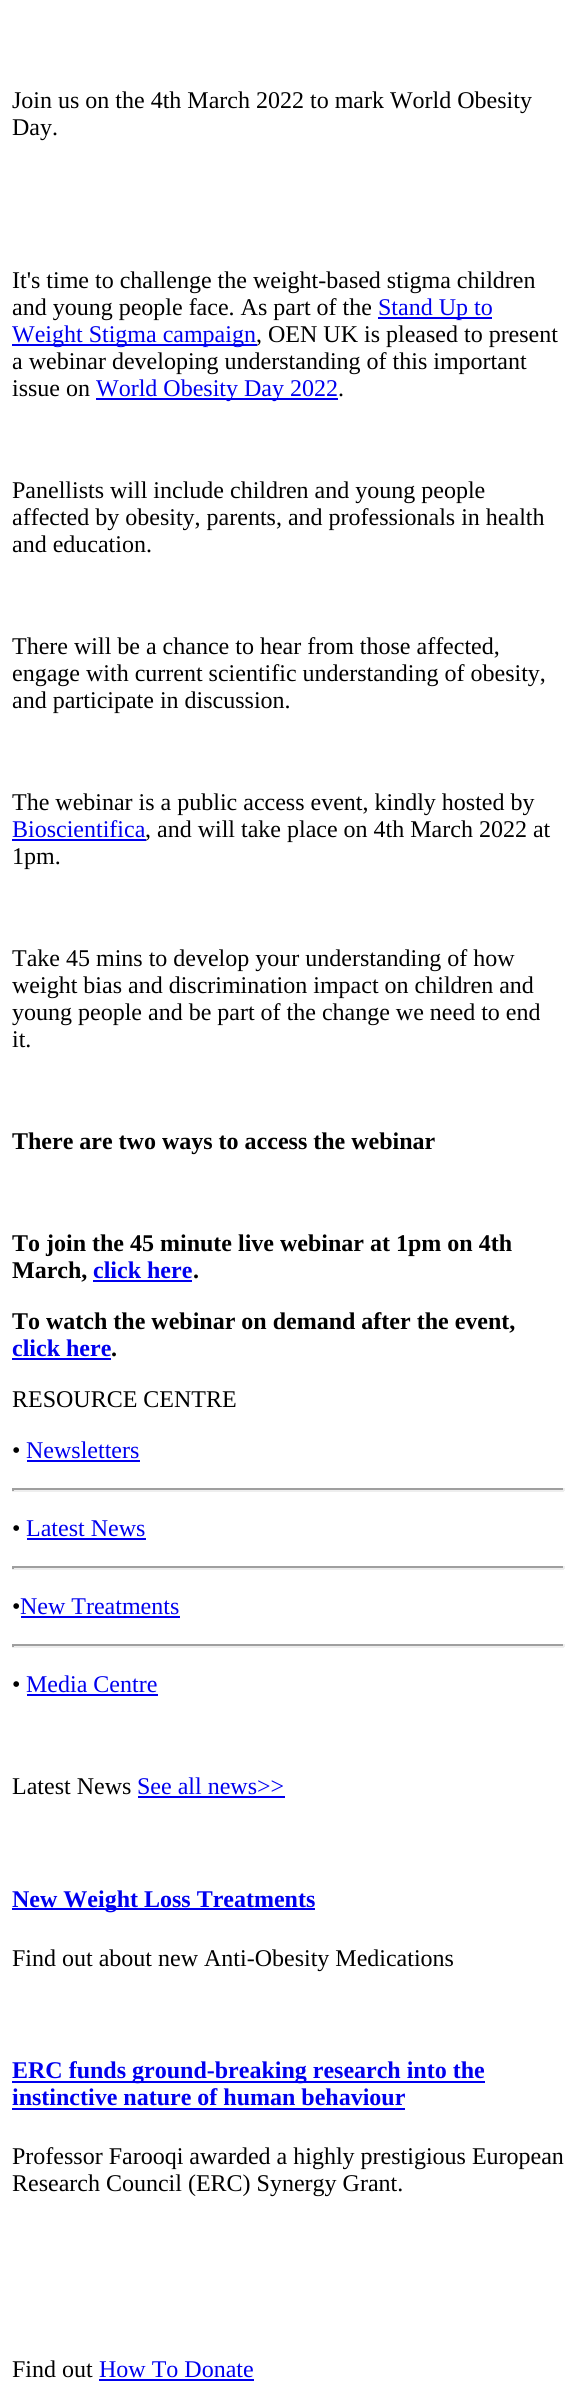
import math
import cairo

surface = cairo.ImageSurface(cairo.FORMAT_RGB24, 576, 2392)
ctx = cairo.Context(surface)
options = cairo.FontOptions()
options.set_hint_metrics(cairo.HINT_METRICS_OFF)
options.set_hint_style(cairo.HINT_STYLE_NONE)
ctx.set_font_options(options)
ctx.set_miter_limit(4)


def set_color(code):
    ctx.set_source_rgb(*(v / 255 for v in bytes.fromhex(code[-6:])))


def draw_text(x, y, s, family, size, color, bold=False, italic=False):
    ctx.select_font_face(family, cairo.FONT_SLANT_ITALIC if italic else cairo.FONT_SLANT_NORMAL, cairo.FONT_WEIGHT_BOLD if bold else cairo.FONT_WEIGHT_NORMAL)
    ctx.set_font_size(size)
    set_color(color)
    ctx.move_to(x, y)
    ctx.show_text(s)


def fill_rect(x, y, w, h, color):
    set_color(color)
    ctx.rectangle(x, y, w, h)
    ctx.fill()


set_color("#ffffff")
ctx.paint()
draw_text(12, 108, "Join us on the 4th March 2022 to mark World Obesity", "Liberation Serif", 24, "#000000")
draw_text(12, 135, "Day.", "Liberation Serif", 24, "#000000")
draw_text(12, 288, "It's time to challenge the weight-based stigma children", "Liberation Serif", 24, "#000000")
draw_text(12, 315, "and young people face. As part of the", "Liberation Serif", 24, "#000000")
fill_rect(378, 317, 114, 2, "#0000ee")
draw_text(378, 315, "Stand Up to", "Liberation Serif", 24, "#0000ee")
fill_rect(12, 344, 245, 2, "#0000ee")
draw_text(12, 342, "Weight Stigma campaign", "Liberation Serif", 24, "#0000ee")
draw_text(256, 342, ", OEN UK is pleased to present", "Liberation Serif", 24, "#000000")
draw_text(12, 369, "a webinar developing understanding of this important", "Liberation Serif", 24, "#000000")
draw_text(12, 396, "issue on", "Liberation Serif", 24, "#000000")
fill_rect(96, 398, 242, 2, "#0000ee")
draw_text(96, 396, "World Obesity Day 2022", "Liberation Serif", 24, "#0000ee")
draw_text(338, 396, ".", "Liberation Serif", 24, "#000000")
draw_text(12, 498, "Panellists will include children and young people", "Liberation Serif", 24, "#000000")
draw_text(12, 525, "affected by obesity, parents, and professionals in health", "Liberation Serif", 24, "#000000")
draw_text(12, 552, "and education.", "Liberation Serif", 24, "#000000")
draw_text(12, 654, "There will be a chance to hear from those affected,", "Liberation Serif", 24, "#000000")
draw_text(12, 681, "engage with current scientific understanding of obesity,", "Liberation Serif", 24, "#000000")
draw_text(12, 708, "and participate in discussion.", "Liberation Serif", 24, "#000000")
draw_text(12, 810, "The webinar is a public access event, kindly hosted by", "Liberation Serif", 24, "#000000")
draw_text(12, 837, "Bioscientifica", "Liberation Serif", 24, "#0000ee")
fill_rect(12, 839, 134, 2, "#0000ee")
draw_text(145, 837, ", and will take place on 4th March 2022 at", "Liberation Serif", 24, "#000000")
draw_text(12, 864, "1pm.", "Liberation Serif", 24, "#000000")
draw_text(12, 966, "Take 45 mins to develop your understanding of how", "Liberation Serif", 24, "#000000")
draw_text(12, 993, "weight bias and discrimination impact on children and", "Liberation Serif", 24, "#000000")
draw_text(12, 1020, "young people and be part of the change we need to end", "Liberation Serif", 24, "#000000")
draw_text(12, 1047, "it.", "Liberation Serif", 24, "#000000")
draw_text(12, 1149, "There are two ways to access the webinar", "Liberation Serif", 24, "#000000", bold=True)
draw_text(12, 1251, "To join the 45 minute live webinar at 1pm on 4th", "Liberation Serif", 24, "#000000", bold=True)
draw_text(12, 1278, "March,", "Liberation Serif", 24, "#000000", bold=True)
draw_text(93, 1278, "click here", "Liberation Serif", 24, "#0000ee", bold=True)
fill_rect(93, 1280, 99, 2, "#0000ee")
draw_text(193, 1278, ".", "Liberation Serif", 24, "#000000", bold=True)
draw_text(12, 1329, "To watch the webinar on demand after the event,", "Liberation Serif", 24, "#000000", bold=True)
draw_text(12, 1356, "click here", "Liberation Serif", 24, "#0000ee", bold=True)
fill_rect(12, 1358, 99, 2, "#0000ee")
draw_text(111, 1356, ".", "Liberation Serif", 24, "#000000", bold=True)
draw_text(12, 1407, "RESOURCE CENTRE", "Liberation Serif", 24, "#000000")
draw_text(12, 1458, "•", "Liberation Serif", 24, "#000000")
draw_text(26, 1458, "Newsletters", "Liberation Serif", 24, "#0000ee")
fill_rect(27, 1460, 113, 2, "#0000ee")
fill_rect(12, 1488, 552, 2, "#9f9f9f")
fill_rect(563, 1488, 2, 3, "#eeeeee")
fill_rect(12, 1490, 552, 2, "#eeeeee")
fill_rect(12, 1488, 2, 3, "#9f9f9f")
draw_text(12, 1536, "•", "Liberation Serif", 24, "#000000")
draw_text(26, 1536, "Latest News", "Liberation Serif", 24, "#0000ee")
fill_rect(27, 1538, 119, 2, "#0000ee")
fill_rect(12, 1566, 552, 2, "#9f9f9f")
fill_rect(563, 1566, 2, 3, "#eeeeee")
fill_rect(12, 1568, 552, 2, "#eeeeee")
fill_rect(12, 1566, 2, 3, "#9f9f9f")
draw_text(12, 1614, "•", "Liberation Serif", 24, "#000000")
draw_text(20, 1614, "New Treatments", "Liberation Serif", 24, "#0000ee")
fill_rect(21, 1616, 159, 2, "#0000ee")
fill_rect(12, 1644, 552, 2, "#9f9f9f")
fill_rect(563, 1644, 2, 3, "#eeeeee")
fill_rect(12, 1646, 552, 2, "#eeeeee")
fill_rect(12, 1644, 2, 3, "#9f9f9f")
draw_text(12, 1692, "•", "Liberation Serif", 24, "#000000")
draw_text(26, 1692, "Media Centre", "Liberation Serif", 24, "#0000ee")
fill_rect(27, 1694, 131, 2, "#0000ee")
draw_text(12, 1794, "Latest News", "Liberation Serif", 24, "#000000")
draw_text(137, 1794, "See all news>>", "Liberation Serif", 24, "#0000ee")
fill_rect(138, 1796, 147, 2, "#0000ee")
fill_rect(12, 1908, 303, 2, "#0000ee")
draw_text(12, 1907, "New Weight Loss Treatments", "Liberation Serif", 24, "#0000ee", bold=True)
draw_text(12, 1966, "Find out about new Anti-Obesity Medications", "Liberation Serif", 24, "#000000")
fill_rect(12, 2081, 473, 2, "#0000ee")
draw_text(12, 2078, "ERC funds ground-breaking research into the", "Liberation Serif", 24, "#0000ee", bold=True)
draw_text(12, 2105, "instinctive nature of human behaviour", "Liberation Serif", 24, "#0000ee", bold=True)
fill_rect(12, 2108, 393, 2, "#0000ee")
draw_text(12, 2164, "Professor Farooqi awarded a highly prestigious European", "Liberation Serif", 24, "#000000")
draw_text(12, 2191, "Research Council (ERC) Synergy Grant.", "Liberation Serif", 24, "#000000")
draw_text(12, 2377, "Find out", "Liberation Serif", 24, "#000000")
draw_text(99, 2377, "How To Donate", "Liberation Serif", 24, "#0000ee")
fill_rect(99, 2379, 155, 2, "#0000ee")
surface.write_to_png("output.png")
